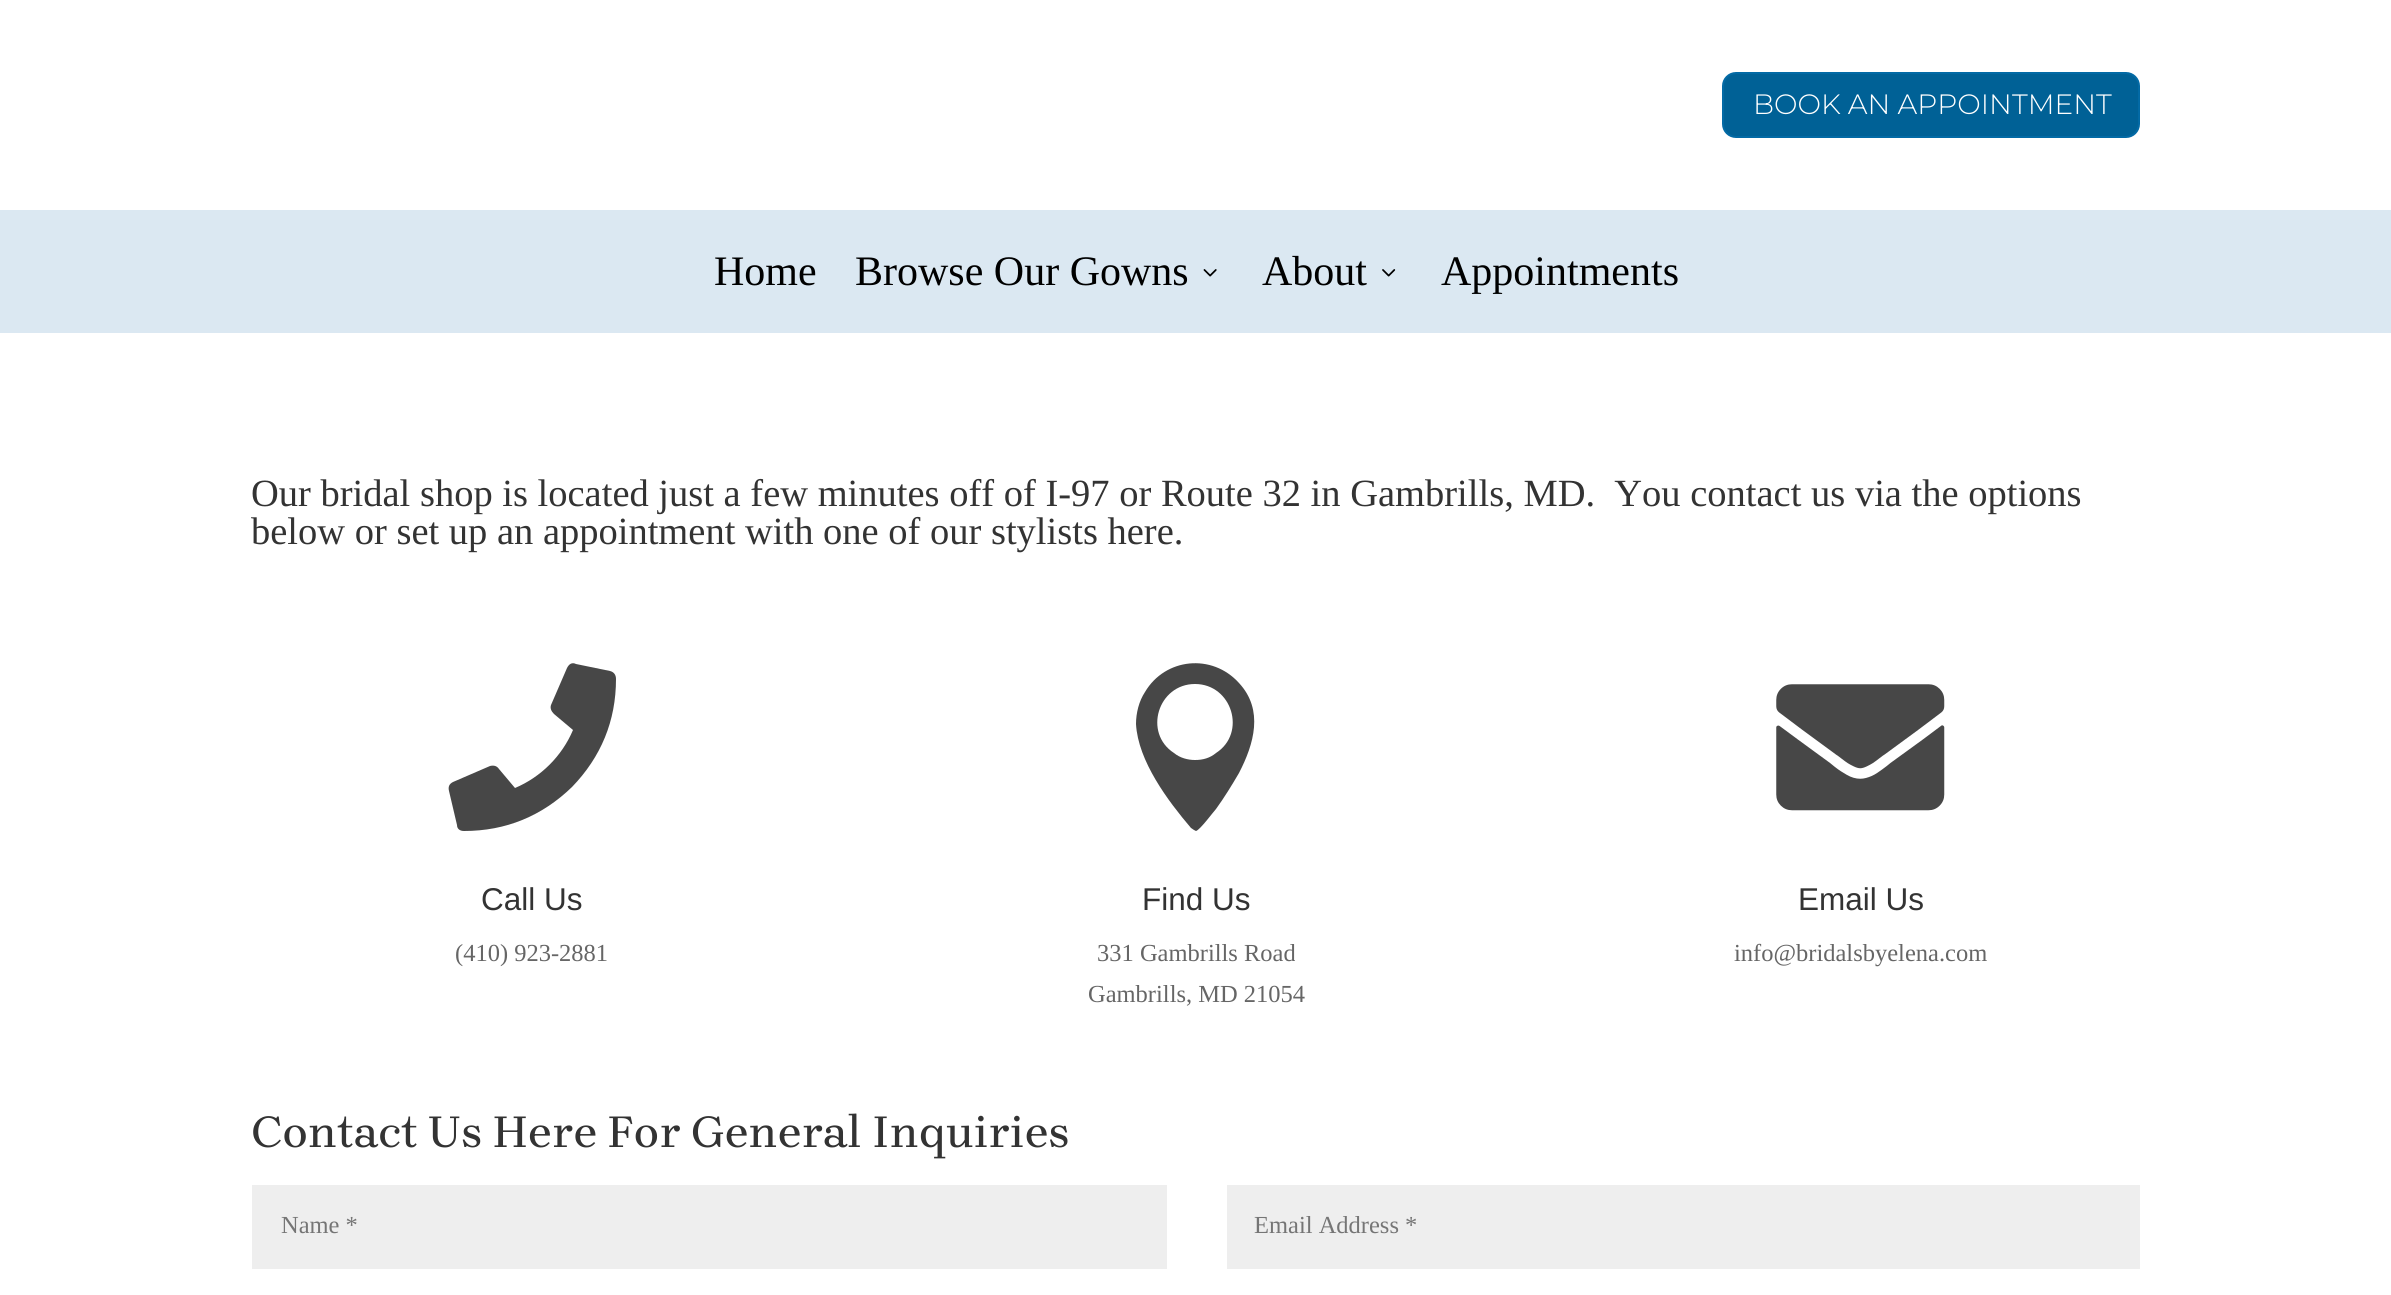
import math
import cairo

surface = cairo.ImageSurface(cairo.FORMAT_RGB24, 2391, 1295)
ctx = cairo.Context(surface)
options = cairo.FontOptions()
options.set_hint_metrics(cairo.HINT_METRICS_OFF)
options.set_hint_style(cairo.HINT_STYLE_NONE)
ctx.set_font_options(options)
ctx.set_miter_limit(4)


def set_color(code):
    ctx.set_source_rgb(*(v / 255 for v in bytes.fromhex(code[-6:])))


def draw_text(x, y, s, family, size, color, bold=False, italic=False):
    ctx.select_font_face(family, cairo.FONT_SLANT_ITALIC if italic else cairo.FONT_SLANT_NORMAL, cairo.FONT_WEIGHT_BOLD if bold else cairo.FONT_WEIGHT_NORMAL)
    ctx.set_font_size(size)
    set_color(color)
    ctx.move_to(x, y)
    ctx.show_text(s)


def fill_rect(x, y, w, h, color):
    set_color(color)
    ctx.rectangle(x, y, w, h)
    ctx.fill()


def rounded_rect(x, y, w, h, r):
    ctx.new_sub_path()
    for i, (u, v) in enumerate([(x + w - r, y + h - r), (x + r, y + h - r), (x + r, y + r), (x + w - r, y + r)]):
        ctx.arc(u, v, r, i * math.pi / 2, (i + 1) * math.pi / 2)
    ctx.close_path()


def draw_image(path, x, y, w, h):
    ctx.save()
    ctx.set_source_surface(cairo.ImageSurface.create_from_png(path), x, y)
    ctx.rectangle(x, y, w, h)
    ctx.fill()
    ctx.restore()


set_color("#ffffff")
ctx.paint()
set_color("#006196")
rounded_rect(1723, 73, 416, 64, 13)
ctx.fill_preserve()
set_color("#036aa5")
ctx.stroke()
draw_text(1753, 114, "BOOK AN APPOINTMENT", "Montserrat Thin", 28, "#ffffff")
fill_rect(0, 210, 2391, 123, "#dbe8f2")
draw_text(714, 285, "Home", "Liberation Serif", 42, "#000000")
draw_text(855, 285, "Browse Our Gowns", "Liberation Serif", 42, "#000000")
draw_image("assets/img1.png", 1203, 269, 14, 8)
draw_text(1262, 285, "About", "Liberation Serif", 42, "#000000")
draw_image("assets/img2.png", 1382, 269, 14, 8)
draw_text(1441, 285, "Appointments", "Liberation Serif", 42, "#000000")
draw_text(251, 506, "Our bridal shop is located just a few minutes off of I-97 or Route 32 in Gambrills, MD.  You contact us via the options", "Liberation Serif", 38.5, "#333333")
draw_text(251, 544, "below or set up an appointment with one of our stylists here.", "Liberation Serif", 38.5, "#333333")
set_color("#474747")
ctx.new_path()
ctx.move_to(610, 671)
ctx.curve_to(614, 672, 616, 675, 616, 679)
ctx.curve_to(616, 721, 601, 757, 572, 787)
ctx.curve_to(542, 816, 506, 831, 464, 831)
ctx.curve_to(460, 831, 457, 829, 457, 825)
ctx.line_to(449, 791)
ctx.curve_to(448, 787, 449, 784, 453, 782)
ctx.line_to(490, 766)
ctx.curve_to(494, 765, 497, 766, 499, 769)
ctx.line_to(515, 788)
ctx.curve_to(541, 777, 562, 756, 573, 730)
ctx.line_to(554, 714)
ctx.curve_to(551, 711, 550, 708, 551, 705)
ctx.line_to(567, 668)
ctx.curve_to(569, 664, 572, 662, 576, 664)
ctx.close_path()
ctx.fill()
draw_text(481, 910, "Call Us", "Liberation Sans", 31.5, "#333333")
draw_text(455, 961, "(410) 923-2881", "Liberation Serif", 24.5, "#666666")
set_color("#474747")
ctx.new_path()
ctx.move_to(1191, 828)
ctx.line_to(1194, 830)
ctx.line_to(1196, 831)
ctx.curve_to(1200, 830, 1214, 811, 1216, 809)
ctx.curve_to(1224, 798, 1232, 785, 1239, 773)
ctx.curve_to(1254, 744, 1264, 710, 1239, 683)
ctx.curve_to(1212, 653, 1165, 658, 1145, 692)
ctx.curve_to(1139, 701, 1136, 713, 1136, 724)
ctx.curve_to(1138, 761, 1168, 801, 1191, 828)
ctx.close_path()
ctx.move_to(1195, 684)
ctx.curve_to(1232, 684, 1247, 733, 1216, 753)
ctx.curve_to(1210, 758, 1203, 760, 1195, 760)
ctx.curve_to(1188, 760, 1180, 758, 1174, 753)
ctx.curve_to(1143, 733, 1158, 684, 1195, 684)
ctx.close_path()
ctx.fill()
draw_text(1142, 910, "Find Us", "Liberation Sans", 31.5, "#333333")
draw_text(1097, 961, "331 Gambrills Road", "Liberation Serif", 24.5, "#666666")
draw_text(1088, 1002, "Gambrills, MD 21054", "Liberation Serif", 24.5, "#666666")
draw_image("assets/img3.png", 1776, 684, 169, 127)
draw_text(1798, 910, "Email Us", "Liberation Sans", 31.5, "#333333")
draw_text(1734, 961, "info@bridalsbyelena.com", "Liberation Serif", 24.5, "#666666")
draw_text(251, 1147, "Contact Us Here For General Inquiries", "Brygada 1918 Medium", 45.5, "#333333")
fill_rect(252, 1185, 915, 84, "#eeeeee")
draw_text(281, 1233, "Name *", "Liberation Serif", 24.5, "#757575")
fill_rect(1227, 1185, 913, 84, "#eeeeee")
draw_text(1254, 1233, "Email Address *", "Liberation Serif", 24.5, "#757575")
surface.write_to_png("output.png")
